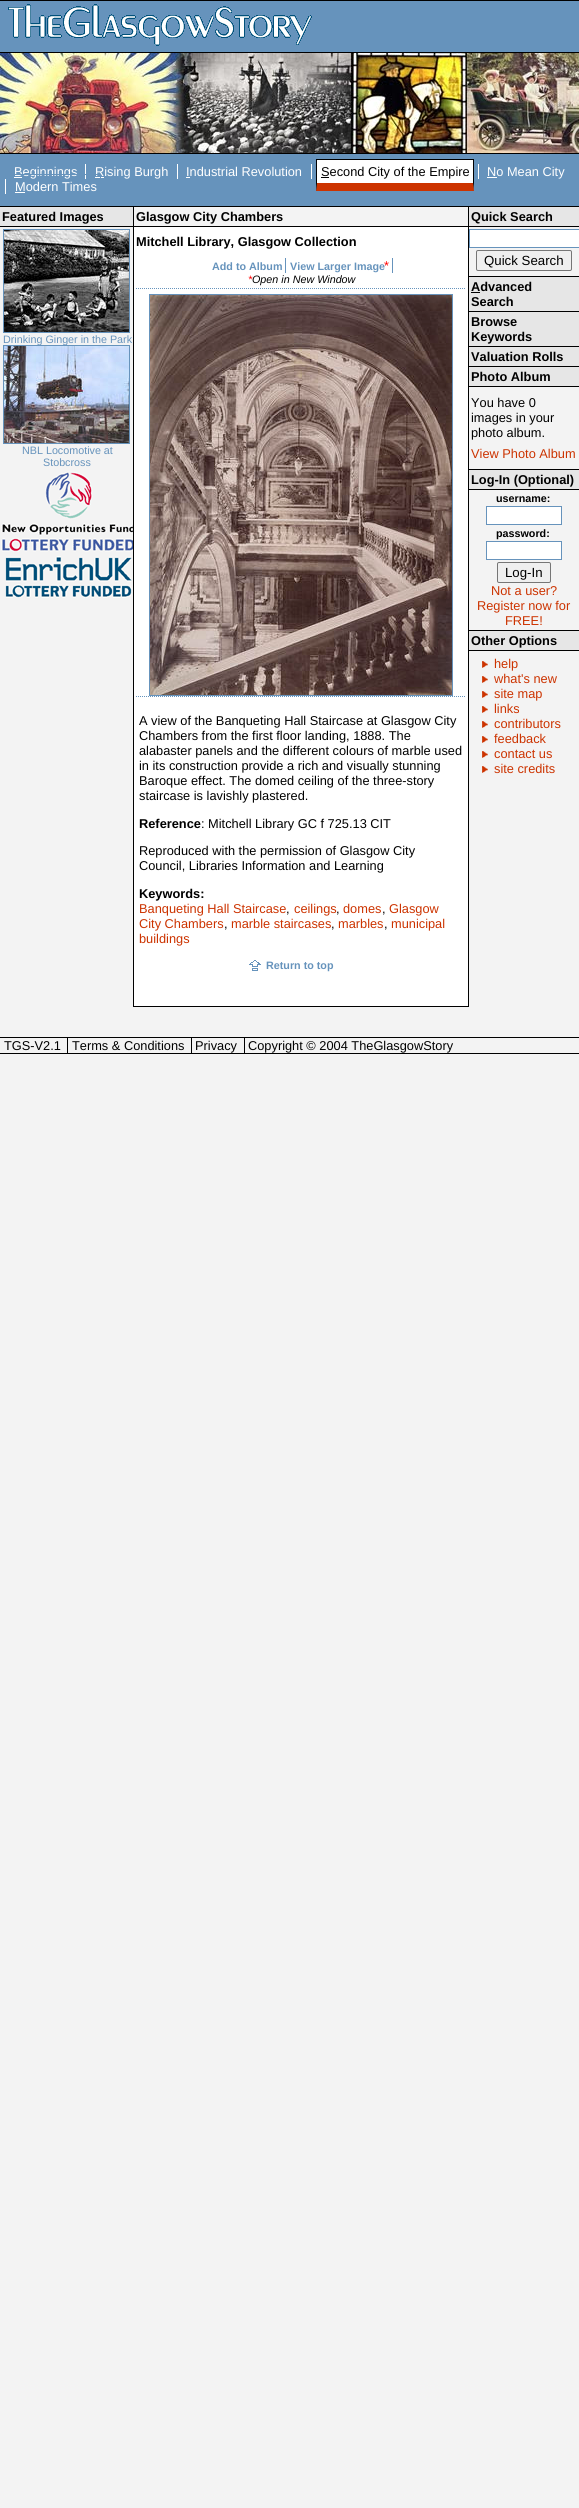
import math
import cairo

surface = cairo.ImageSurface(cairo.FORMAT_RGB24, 579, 2508)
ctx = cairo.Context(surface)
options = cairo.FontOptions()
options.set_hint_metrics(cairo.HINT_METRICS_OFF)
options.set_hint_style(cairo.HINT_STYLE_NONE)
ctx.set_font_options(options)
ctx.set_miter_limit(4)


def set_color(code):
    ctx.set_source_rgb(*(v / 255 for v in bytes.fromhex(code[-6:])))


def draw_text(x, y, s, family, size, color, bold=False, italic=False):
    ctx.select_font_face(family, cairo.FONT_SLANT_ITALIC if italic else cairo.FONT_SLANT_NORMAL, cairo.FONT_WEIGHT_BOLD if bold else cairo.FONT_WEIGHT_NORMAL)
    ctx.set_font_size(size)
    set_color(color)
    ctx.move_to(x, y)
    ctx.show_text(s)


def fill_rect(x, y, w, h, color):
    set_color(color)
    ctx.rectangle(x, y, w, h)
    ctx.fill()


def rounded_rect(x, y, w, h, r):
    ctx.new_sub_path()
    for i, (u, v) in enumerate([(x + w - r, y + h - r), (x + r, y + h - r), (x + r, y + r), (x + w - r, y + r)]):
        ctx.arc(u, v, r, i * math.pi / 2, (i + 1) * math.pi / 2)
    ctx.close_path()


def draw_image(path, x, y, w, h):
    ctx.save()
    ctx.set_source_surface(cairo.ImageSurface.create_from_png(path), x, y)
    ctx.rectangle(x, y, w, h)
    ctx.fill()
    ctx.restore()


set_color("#f3f3f3")
ctx.paint()
fill_rect(0, 1, 579, 51, "#6693bc")
fill_rect(0, 0, 579, 1, "#000000")
draw_image("assets/img1.png", 8, 4, 304, 42)
draw_image("assets/img2.png", 0, 53, 579, 100)
fill_rect(0, 52, 579, 1, "#000000")
fill_rect(0, 153, 579, 1, "#000000")
fill_rect(0, 154, 579, 52, "#6693bc")
fill_rect(0, 206, 579, 1, "#000000")
fill_rect(14, 177, 8, 1, "#ffffff")
draw_text(14, 176, "Beginnings", "Liberation Sans", 12.8, "#ffffff")
fill_rect(95, 177, 9, 1, "#ffffff")
draw_text(95, 176, "Rising Burgh", "Liberation Sans", 12.8, "#ffffff")
fill_rect(85, 164, 1, 15, "#ffffff")
draw_text(186, 176, "Industrial Revolution", "Liberation Sans", 12.8, "#ffffff")
fill_rect(177, 164, 1, 15, "#ffffff")
fill_rect(186, 177, 4, 1, "#ffffff")
fill_rect(317, 160, 156, 23, "#ffffff")
fill_rect(321, 177, 8, 1, "#000000")
draw_text(321, 176, "Second City of the Empire", "Liberation Sans", 12.8, "#000000")
fill_rect(311, 164, 1, 15, "#ffffff")
fill_rect(316, 159, 158, 1, "#000000")
set_color("#cc3300")
ctx.new_path()
ctx.move_to(329, 191)
ctx.line_to(316, 191)
ctx.line_to(317, 183)
ctx.line_to(329, 183)
ctx.close_path()
ctx.fill()
set_color("#000000")
ctx.new_path()
ctx.move_to(316, 191)
ctx.line_to(316, 159)
ctx.line_to(317, 160)
ctx.line_to(317, 183)
ctx.close_path()
ctx.fill()
ctx.new_path()
ctx.move_to(474, 159)
ctx.line_to(474, 191)
ctx.line_to(473, 183)
ctx.line_to(473, 160)
ctx.close_path()
ctx.fill()
set_color("#cc3300")
ctx.new_path()
ctx.move_to(474, 191)
ctx.line_to(329, 191)
ctx.line_to(329, 183)
ctx.line_to(473, 183)
ctx.close_path()
ctx.fill()
fill_rect(487, 177, 10, 1, "#ffffff")
draw_text(487, 176, "No Mean City", "Liberation Sans", 12.8, "#ffffff")
fill_rect(478, 164, 1, 15, "#ffffff")
draw_text(15, 191, "Modern Times", "Liberation Sans", 12.8, "#ffffff")
fill_rect(5, 179, 1, 15, "#ffffff")
fill_rect(10, 174, 91, 1, "#6693bc")
fill_rect(100, 174, 1, 4, "#6693bc")
fill_rect(15, 192, 10, 1, "#ffffff")
fill_rect(0, 207, 133, 19, "#e6e6e6")
fill_rect(0, 226, 133, 1, "#000000")
draw_text(2, 221, "Featured Images", "Liberation Sans", 12.8, "#000000", bold=True)
ctx.rectangle(3.5, 229.5, 126, 103)
set_color("#6693bc")
ctx.set_line_width(1)
ctx.stroke()
draw_image("assets/img3.png", 4, 230, 125, 102)
draw_text(3, 343, "Drinking Ginger in the Park", "Liberation Sans", 10.75, "#6693bc")
ctx.rectangle(3.5, 345.5, 126, 98)
ctx.stroke()
draw_image("assets/img4.png", 4, 346, 125, 97)
draw_text(22, 454, "NBL Locomotive at", "Liberation Sans", 10.75, "#6693bc")
draw_text(43, 466, "Stobcross", "Liberation Sans", 10.75, "#6693bc")
draw_image("assets/img5.png", 1, 471, 132, 81)
draw_image("assets/img6.png", 5, 556, 127, 42)
fill_rect(134, 227, 334, 779, "#ffffff")
fill_rect(468, 207, 1, 800, "#000000")
fill_rect(133, 1006, 336, 1, "#000000")
fill_rect(133, 207, 1, 800, "#000000")
fill_rect(134, 226, 334, 1, "#000000")
draw_text(136, 221, "Glasgow City Chambers", "Liberation Sans", 12.8, "#000000", bold=True)
draw_text(136, 246, "Mitchell Library, Glasgow Collection", "Liberation Sans", 12.8, "#000000", bold=True)
ctx.new_path()
ctx.move_to(136, 288.5)
ctx.line_to(466, 288.5)
set_color("#6693bc")
ctx.set_dash([1, 1])
ctx.stroke()
draw_text(212, 270, "Add to Album", "Liberation Sans", 10.75, "#6693bc", bold=True)
draw_text(290, 270, "View Larger Image", "Liberation Sans", 10.75, "#6693bc", bold=True)
fill_rect(285, 258, 1, 15, "#6693bc")
draw_text(384, 270, "*", "Liberation Sans", 12.8, "#ff0000")
fill_rect(392, 258, 1, 15, "#6693bc")
draw_text(248, 283, "*", "Liberation Sans", 10.75, "#ff0000", italic=True)
draw_text(252, 283, "Open in New Window", "Liberation Sans", 10.75, "#000000", italic=True)
ctx.rectangle(149.5, 294.5, 303, 401)
set_color("#6693bc")
ctx.set_dash([])
ctx.stroke()
draw_image("assets/img7.png", 150, 295, 302, 400)
ctx.new_path()
ctx.move_to(136, 696.5)
ctx.line_to(466, 696.5)
ctx.set_dash([1, 1])
ctx.stroke()
draw_text(139, 725, "A view of the Banqueting Hall Staircase at Glasgow City", "Liberation Sans", 12.8, "#000000")
draw_text(139, 740, "Chambers from the first floor landing, 1888. The", "Liberation Sans", 12.8, "#000000")
draw_text(139, 755, "alabaster panels and the different colours of marble used", "Liberation Sans", 12.8, "#000000")
draw_text(139, 770, "in its construction provide a rich and visually stunning", "Liberation Sans", 12.8, "#000000")
draw_text(139, 785, "Baroque effect. The domed ceiling of the three-story", "Liberation Sans", 12.8, "#000000")
draw_text(139, 800, "staircase is lavishly plastered.", "Liberation Sans", 12.8, "#000000")
draw_text(139, 828, "Reference", "Liberation Sans", 12.8, "#000000", bold=True)
draw_text(201, 828, ": Mitchell Library GC f 725.13 CIT", "Liberation Sans", 12.8, "#000000")
draw_text(139, 855, "Reproduced with the permission of Glasgow City", "Liberation Sans", 12.8, "#000000")
draw_text(139, 870, "Council, Libraries Information and Learning", "Liberation Sans", 12.8, "#000000")
draw_text(139, 898, "Keywords:", "Liberation Sans", 12.8, "#000000", bold=True)
draw_text(139, 913, "Banqueting Hall Staircase", "Liberation Sans", 12.8, "#cc3300")
draw_text(286, 913, ",", "Liberation Sans", 12.8, "#000000")
draw_text(294, 913, "ceilings", "Liberation Sans", 12.8, "#cc3300")
draw_text(336, 913, ",", "Liberation Sans", 12.8, "#000000")
draw_text(343, 913, "domes", "Liberation Sans", 12.8, "#cc3300")
draw_text(382, 913, ",", "Liberation Sans", 12.8, "#000000")
draw_text(389, 913, "Glasgow", "Liberation Sans", 12.8, "#cc3300")
draw_text(139, 928, "City Chambers", "Liberation Sans", 12.8, "#cc3300")
draw_text(224, 928, ",", "Liberation Sans", 12.8, "#000000")
draw_text(231, 928, "marble staircases", "Liberation Sans", 12.8, "#cc3300")
draw_text(331, 928, ",", "Liberation Sans", 12.8, "#000000")
draw_text(338, 928, "marbles", "Liberation Sans", 12.8, "#cc3300")
draw_text(384, 928, ",", "Liberation Sans", 12.8, "#000000")
draw_text(391, 928, "municipal", "Liberation Sans", 12.8, "#cc3300")
draw_text(139, 943, "buildings", "Liberation Sans", 12.8, "#cc3300")
draw_image("assets/img8.png", 249, 960, 12, 11)
draw_text(266, 969, "Return to top", "Liberation Sans", 10.75, "#6693bc", bold=True)
fill_rect(469, 207, 110, 19, "#e6e6e6")
fill_rect(469, 226, 110, 1, "#000000")
draw_text(471, 221, "Quick Search", "Liberation Sans", 12.8, "#000000", bold=True)
set_color("#ffffff")
ctx.rectangle(469.5, 229.5, 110, 18)
ctx.fill_preserve()
set_color("#6693bc")
ctx.set_dash([])
ctx.stroke()
set_color("#efefef")
rounded_rect(476.5, 250.5, 95, 20, 1.5)
ctx.fill_preserve()
set_color("#767676")
ctx.stroke()
draw_text(484, 265, "Quick Search", "Liberation Sans", 13.25, "#000000")
fill_rect(469, 277, 110, 34, "#e6e6e6")
fill_rect(469, 276, 110, 1, "#000000")
draw_text(471, 291, "Advanced", "Liberation Sans", 12.8, "#000000", bold=True)
fill_rect(471, 292, 9, 1, "#000000")
draw_text(471, 306, "Search", "Liberation Sans", 12.8, "#000000", bold=True)
fill_rect(469, 312, 110, 34, "#e6e6e6")
fill_rect(469, 311, 110, 1, "#000000")
draw_text(471, 326, "Browse", "Liberation Sans", 12.8, "#000000", bold=True)
draw_text(471, 341, "Keywords", "Liberation Sans", 12.8, "#000000", bold=True)
fill_rect(469, 347, 110, 19, "#e6e6e6")
fill_rect(469, 346, 110, 1, "#000000")
draw_text(471, 361, "Valuation Rolls", "Liberation Sans", 12.8, "#000000", bold=True)
fill_rect(469, 367, 110, 19, "#e6e6e6")
fill_rect(469, 366, 110, 1, "#000000")
fill_rect(469, 386, 110, 1, "#000000")
draw_text(471, 381, "Photo Album", "Liberation Sans", 12.8, "#000000", bold=True)
draw_text(471, 407, "You have 0", "Liberation Sans", 12.8, "#000000")
draw_text(471, 422, "images in your", "Liberation Sans", 12.8, "#000000")
draw_text(471, 437, "photo album.", "Liberation Sans", 12.8, "#000000")
draw_text(471, 458, "View Photo Album", "Liberation Sans", 12.8, "#cc3300")
fill_rect(469, 470, 110, 19, "#e6e6e6")
fill_rect(469, 469, 110, 1, "#000000")
fill_rect(469, 489, 110, 1, "#000000")
draw_text(471, 484, "Log-In (Optional)", "Liberation Sans", 12.8, "#000000", bold=True)
draw_text(496, 502, "username:", "Liberation Sans", 10.75, "#000000", bold=True)
set_color("#ffffff")
ctx.rectangle(486.5, 506.5, 75, 18)
ctx.fill_preserve()
set_color("#6693bc")
ctx.stroke()
draw_text(496, 537, "password:", "Liberation Sans", 10.75, "#000000", bold=True)
set_color("#ffffff")
ctx.rectangle(486.5, 541.5, 75, 18)
ctx.fill_preserve()
set_color("#6693bc")
ctx.stroke()
set_color("#efefef")
rounded_rect(497.5, 562.5, 53, 20, 1.5)
ctx.fill_preserve()
set_color("#767676")
ctx.stroke()
draw_text(505, 577, "Log-In", "Liberation Sans", 13.25, "#000000")
draw_text(491, 595, "Not a user?", "Liberation Sans", 12.8, "#cc3300")
draw_text(477, 610, "Register now for", "Liberation Sans", 12.8, "#cc3300")
draw_text(505, 625, "FREE!", "Liberation Sans", 12.8, "#cc3300")
fill_rect(469, 631, 110, 19, "#e6e6e6")
fill_rect(469, 630, 110, 1, "#000000")
fill_rect(469, 650, 110, 1, "#000000")
draw_text(471, 645, "Other Options", "Liberation Sans", 12.8, "#000000", bold=True)
draw_image("assets/img9.png", 482, 661, 6, 7)
draw_text(494, 668, "help", "Liberation Sans", 12.8, "#cc3300")
draw_image("assets/img9.png", 482, 676, 6, 7)
draw_text(494, 683, "what's new", "Liberation Sans", 12.8, "#cc3300")
draw_image("assets/img9.png", 482, 691, 6, 7)
draw_text(494, 698, "site map", "Liberation Sans", 12.8, "#cc3300")
draw_image("assets/img9.png", 482, 706, 6, 7)
draw_text(494, 713, "links", "Liberation Sans", 12.8, "#cc3300")
draw_image("assets/img9.png", 482, 721, 6, 7)
draw_text(494, 728, "contributors", "Liberation Sans", 12.8, "#cc3300")
draw_image("assets/img9.png", 482, 736, 6, 7)
draw_text(494, 743, "feedback", "Liberation Sans", 12.8, "#cc3300")
draw_image("assets/img9.png", 482, 751, 6, 7)
draw_text(494, 758, "contact us", "Liberation Sans", 12.8, "#cc3300")
draw_image("assets/img9.png", 482, 766, 6, 7)
draw_text(494, 773, "site credits", "Liberation Sans", 12.8, "#cc3300")
fill_rect(0, 1037, 579, 1, "#000000")
fill_rect(0, 1053, 579, 1, "#000000")
draw_text(4, 1050, "TGS-V2.1", "Liberation Sans", 12.8, "#000000")
draw_text(72, 1050, "Terms & Conditions", "Liberation Sans", 12.8, "#000000")
fill_rect(67, 1038, 1, 15, "#000000")
draw_text(195, 1050, "Privacy", "Liberation Sans", 12.8, "#000000")
fill_rect(191, 1038, 1, 15, "#000000")
draw_text(248, 1050, "Copyright © 2004 TheGlasgowStory", "Liberation Sans", 12.8, "#000000")
fill_rect(244, 1038, 1, 15, "#000000")
surface.write_to_png("output.png")
